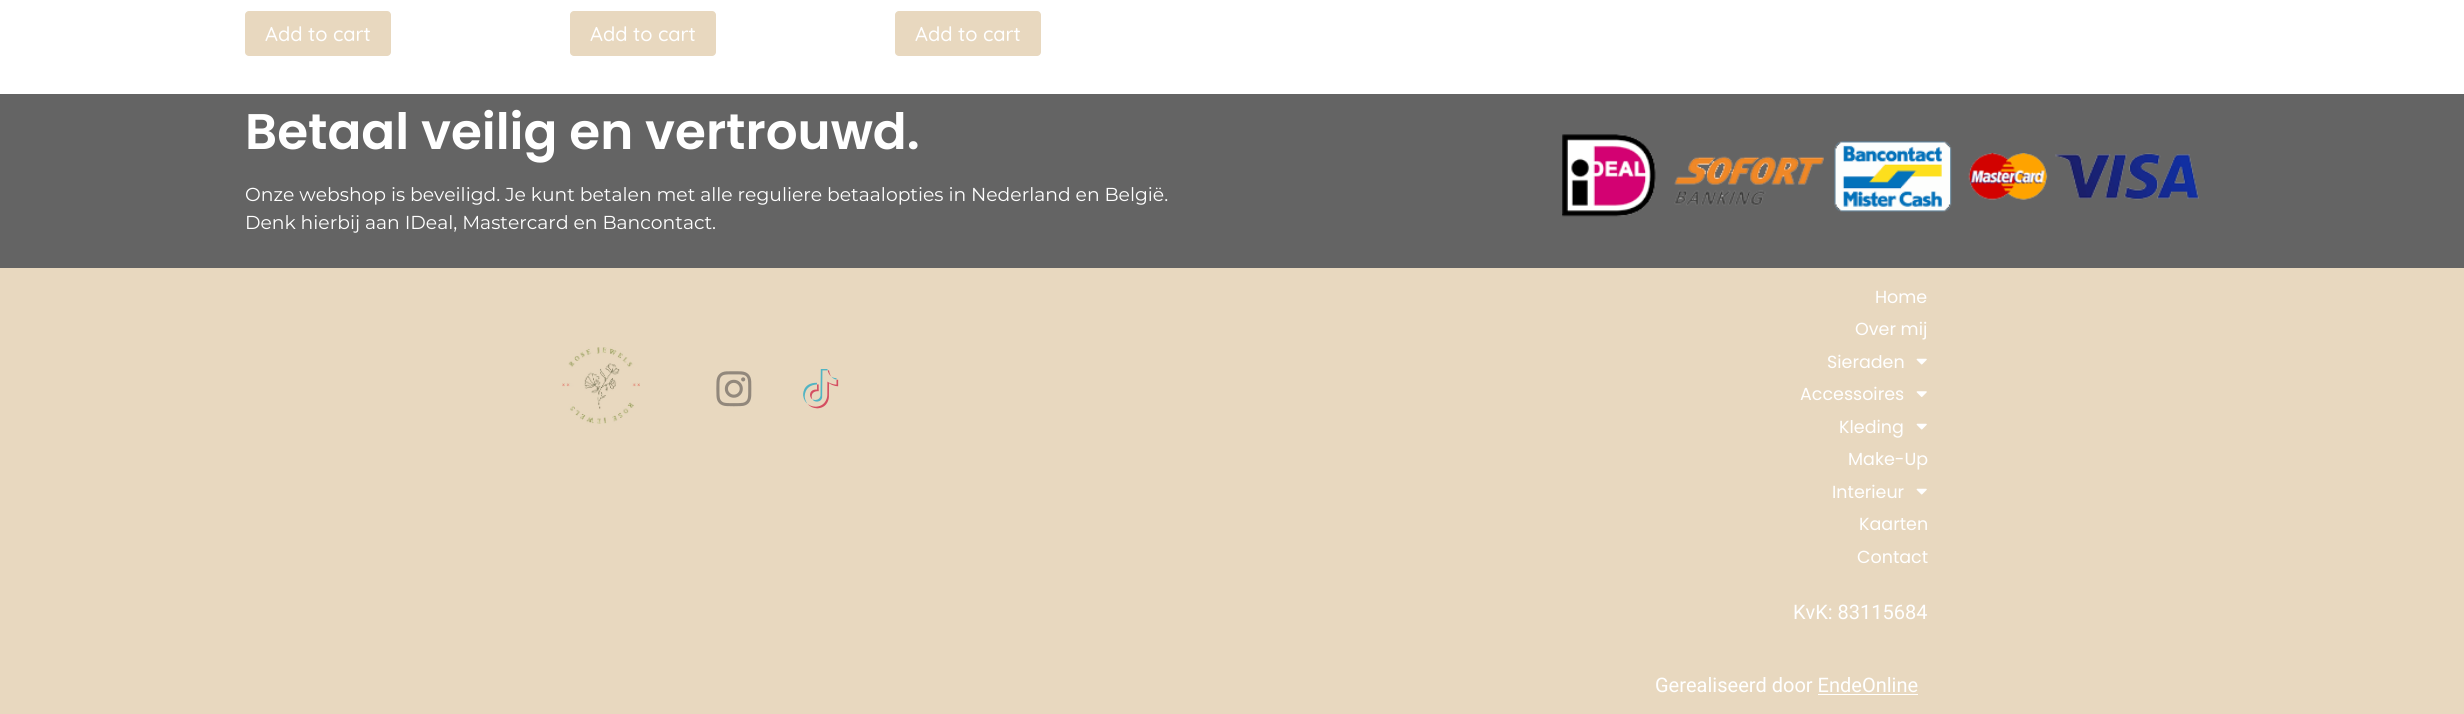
import math
import cairo

surface = cairo.ImageSurface(cairo.FORMAT_RGB24, 2464, 714)
ctx = cairo.Context(surface)
options = cairo.FontOptions()
options.set_hint_metrics(cairo.HINT_METRICS_OFF)
options.set_hint_style(cairo.HINT_STYLE_NONE)
ctx.set_font_options(options)
ctx.set_miter_limit(4)


def set_color(code):
    ctx.set_source_rgb(*(v / 255 for v in bytes.fromhex(code[-6:])))


def draw_text(x, y, s, family, size, color, bold=False, italic=False):
    ctx.select_font_face(family, cairo.FONT_SLANT_ITALIC if italic else cairo.FONT_SLANT_NORMAL, cairo.FONT_WEIGHT_BOLD if bold else cairo.FONT_WEIGHT_NORMAL)
    ctx.set_font_size(size)
    set_color(color)
    ctx.move_to(x, y)
    ctx.show_text(s)


def fill_rect(x, y, w, h, color):
    set_color(color)
    ctx.rectangle(x, y, w, h)
    ctx.fill()


def rounded_rect(x, y, w, h, r):
    ctx.new_sub_path()
    for i, (u, v) in enumerate([(x + w - r, y + h - r), (x + r, y + h - r), (x + r, y + r), (x + w - r, y + r)]):
        ctx.arc(u, v, r, i * math.pi / 2, (i + 1) * math.pi / 2)
    ctx.close_path()


def draw_image(path, x, y, w, h):
    ctx.save()
    ctx.set_source_surface(cairo.ImageSurface.create_from_png(path), x, y)
    ctx.rectangle(x, y, w, h)
    ctx.fill()
    ctx.restore()


set_color("#ffffff")
ctx.paint()
set_color("#e8d8bf")
rounded_rect(245, 11, 146, 45, 4)
ctx.fill()
draw_text(265, 41, "Add to cart", "Quicksand Medium", 20, "#ffffff")
set_color("#e8d8bf")
rounded_rect(570, 11, 146, 45, 4)
ctx.fill()
draw_text(590, 41, "Add to cart", "Quicksand Medium", 20, "#ffffff")
set_color("#e8d8bf")
rounded_rect(895, 11, 146, 45, 4)
ctx.fill()
draw_text(915, 41, "Add to cart", "Quicksand Medium", 20, "#ffffff")
fill_rect(0, 94, 2464, 174, "#646464")
draw_text(245, 149, "Betaal veilig en vertrouwd.", "Poppins SemiBold", 50, "#ffffff")
draw_text(245, 201, "Onze webshop is beveiligd. Je kunt betalen met alle reguliere betaalopties in Nederland en België.", "Montserrat", 18.75, "#ffffff")
draw_text(245, 229, "Denk hierbij aan IDeal, Mastercard en Bancontact.", "Montserrat", 18.75, "#ffffff")
draw_image("assets/img1.png", 1562, 134, 637, 83)
fill_rect(0, 268, 2464, 446, "#e8d8bf")
draw_image("assets/img2.png", 562, 347, 78, 77)
draw_image("assets/img3.png", 716, 371, 36, 36)
draw_image("assets/img4.png", 803, 369, 36, 40)
draw_text(1875, 303, "Home", "Poppins", 17.5, "#ffffff")
draw_text(1855, 335, "Over mij", "Poppins", 17.5, "#ffffff")
draw_text(1827, 368, "Sieraden", "Poppins", 17.5, "#ffffff")
draw_image("assets/img5.png", 1916, 358, 11, 7)
draw_text(1800, 400, "Accessoires", "Poppins", 17.5, "#ffffff")
draw_image("assets/img6.png", 1916, 391, 11, 6)
draw_text(1839, 433, "Kleding", "Poppins", 17.5, "#ffffff")
draw_image("assets/img5.png", 1916, 423, 11, 7)
draw_text(1848, 465, "Make-Up", "Poppins", 17.5, "#ffffff")
draw_text(1832, 498, "Interieur", "Poppins", 17.5, "#ffffff")
draw_image("assets/img5.png", 1916, 488, 11, 7)
draw_text(1859, 530, "Kaarten", "Poppins", 17.5, "#ffffff")
draw_text(1857, 563, "Contact", "Poppins", 17.5, "#ffffff")
draw_text(1793, 619, "KvK: 83115684", "Roboto", 20, "#ffffff")
draw_text(1655, 692, "Gerealiseerd door EndeOnline", "Roboto", 20, "#ffffff")
fill_rect(1818, 694, 100, 1, "#ffffff")
surface.write_to_png("output.png")
